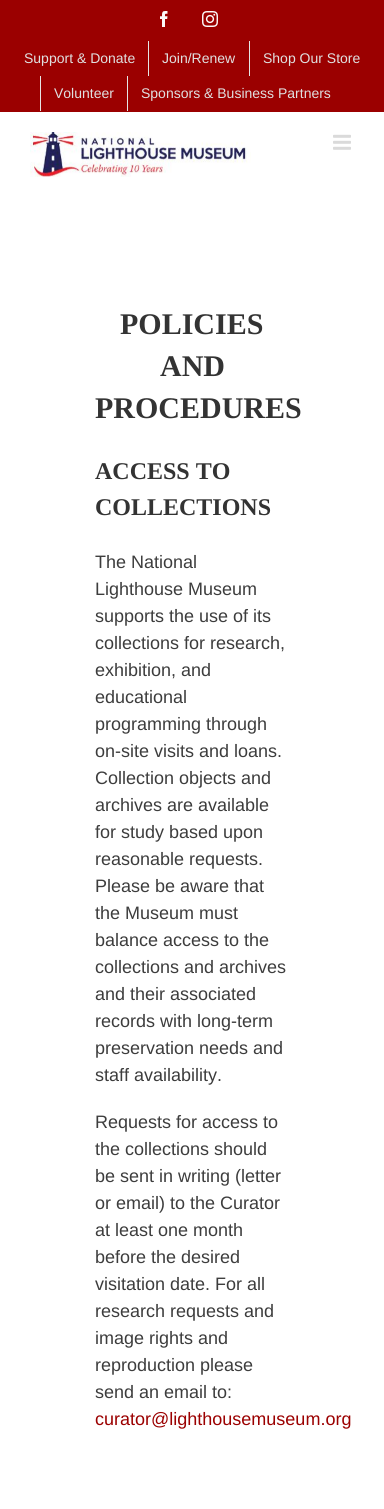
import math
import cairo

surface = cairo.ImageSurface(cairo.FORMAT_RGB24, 384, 1509)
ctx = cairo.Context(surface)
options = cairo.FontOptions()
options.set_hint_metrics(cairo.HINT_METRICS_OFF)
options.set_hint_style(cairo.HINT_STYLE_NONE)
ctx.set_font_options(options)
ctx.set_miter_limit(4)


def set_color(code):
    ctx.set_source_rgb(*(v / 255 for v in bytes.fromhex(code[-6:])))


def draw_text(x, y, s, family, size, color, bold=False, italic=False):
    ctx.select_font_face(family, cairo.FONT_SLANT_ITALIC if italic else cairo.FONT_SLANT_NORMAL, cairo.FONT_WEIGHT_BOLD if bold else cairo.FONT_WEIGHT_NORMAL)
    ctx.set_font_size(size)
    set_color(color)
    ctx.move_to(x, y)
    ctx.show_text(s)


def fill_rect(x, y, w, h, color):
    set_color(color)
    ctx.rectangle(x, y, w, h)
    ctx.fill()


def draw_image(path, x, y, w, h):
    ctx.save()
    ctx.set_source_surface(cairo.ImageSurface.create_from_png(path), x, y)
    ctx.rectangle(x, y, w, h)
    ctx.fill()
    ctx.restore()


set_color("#ffffff")
ctx.paint()
fill_rect(0, 0, 384, 112, "#9b0000")
draw_image("assets/img1.png", 160, 11, 8, 16)
draw_image("assets/img2.png", 202, 11, 16, 16)
draw_text(24, 63, "Support & Donate", "Liberation Sans", 14, "#e0e0e0")
fill_rect(148, 41, 1, 35, "#e5e5e5")
draw_text(162, 63, "Join/Renew", "Liberation Sans", 14, "#e0e0e0")
fill_rect(249, 41, 1, 35, "#e5e5e5")
draw_text(263, 63, "Shop Our Store", "Liberation Sans", 14, "#e0e0e0")
fill_rect(40, 76, 1, 35, "#e5e5e5")
draw_text(54, 98, "Volunteer", "Liberation Sans", 14, "#e0e0e0")
fill_rect(127, 76, 1, 35, "#e5e5e5")
draw_text(141, 98, "Sponsors & Business Partners", "Liberation Sans", 14, "#e0e0e0")
draw_image("assets/img3.png", 30, 132, 221, 45)
draw_image("assets/img4.png", 333, 134, 18, 16)
draw_text(120, 334, "POLICIES", "Liberation Serif", 30, "#333333", bold=True)
draw_text(160, 376, "AND", "Liberation Serif", 30, "#333333", bold=True)
draw_text(95, 418, "PROCEDURES", "Liberation Serif", 30, "#333333", bold=True)
draw_text(95, 479, "ACCESS TO", "Liberation Serif", 24, "#333333", bold=True)
draw_text(95, 515, "COLLECTIONS", "Liberation Serif", 24, "#333333", bold=True)
draw_text(95, 568, "The National", "Liberation Sans", 18, "#3d3d3d")
draw_text(95, 595, "Lighthouse Museum", "Liberation Sans", 18, "#3d3d3d")
draw_text(95, 622, "supports the use of its", "Liberation Sans", 18, "#3d3d3d")
draw_text(95, 649, "collections for research,", "Liberation Sans", 18, "#3d3d3d")
draw_text(95, 676, "exhibition, and", "Liberation Sans", 18, "#3d3d3d")
draw_text(95, 703, "educational", "Liberation Sans", 18, "#3d3d3d")
draw_text(95, 730, "programming through", "Liberation Sans", 18, "#3d3d3d")
draw_text(95, 757, "on-site visits and loans.", "Liberation Sans", 18, "#3d3d3d")
draw_text(95, 784, "Collection objects and", "Liberation Sans", 18, "#3d3d3d")
draw_text(95, 811, "archives are available", "Liberation Sans", 18, "#3d3d3d")
draw_text(95, 838, "for study based upon", "Liberation Sans", 18, "#3d3d3d")
draw_text(95, 865, "reasonable requests.", "Liberation Sans", 18, "#3d3d3d")
draw_text(95, 892, "Please be aware that", "Liberation Sans", 18, "#3d3d3d")
draw_text(95, 919, "the Museum must", "Liberation Sans", 18, "#3d3d3d")
draw_text(95, 946, "balance access to the", "Liberation Sans", 18, "#3d3d3d")
draw_text(95, 973, "collections and archives", "Liberation Sans", 18, "#3d3d3d")
draw_text(95, 1000, "and their associated", "Liberation Sans", 18, "#3d3d3d")
draw_text(95, 1027, "records with long-term", "Liberation Sans", 18, "#3d3d3d")
draw_text(95, 1054, "preservation needs and", "Liberation Sans", 18, "#3d3d3d")
draw_text(95, 1081, "staff availability.", "Liberation Sans", 18, "#3d3d3d")
draw_text(95, 1128, "Requests for access to", "Liberation Sans", 18, "#3d3d3d")
draw_text(95, 1155, "the collections should", "Liberation Sans", 18, "#3d3d3d")
draw_text(95, 1182, "be sent in writing (letter", "Liberation Sans", 18, "#3d3d3d")
draw_text(95, 1209, "or email) to the Curator", "Liberation Sans", 18, "#3d3d3d")
draw_text(95, 1236, "at least one month", "Liberation Sans", 18, "#3d3d3d")
draw_text(95, 1263, "before the desired", "Liberation Sans", 18, "#3d3d3d")
draw_text(95, 1290, "visitation date. For all", "Liberation Sans", 18, "#3d3d3d")
draw_text(95, 1317, "research requests and", "Liberation Sans", 18, "#3d3d3d")
draw_text(95, 1344, "image rights and", "Liberation Sans", 18, "#3d3d3d")
draw_text(95, 1371, "reproduction please", "Liberation Sans", 18, "#3d3d3d")
draw_text(95, 1398, "send an email to:", "Liberation Sans", 18, "#3d3d3d")
draw_text(95, 1425, "curator@lighthousemuseum.org", "Liberation Sans", 18, "#9b0000")
surface.write_to_png("output.png")
